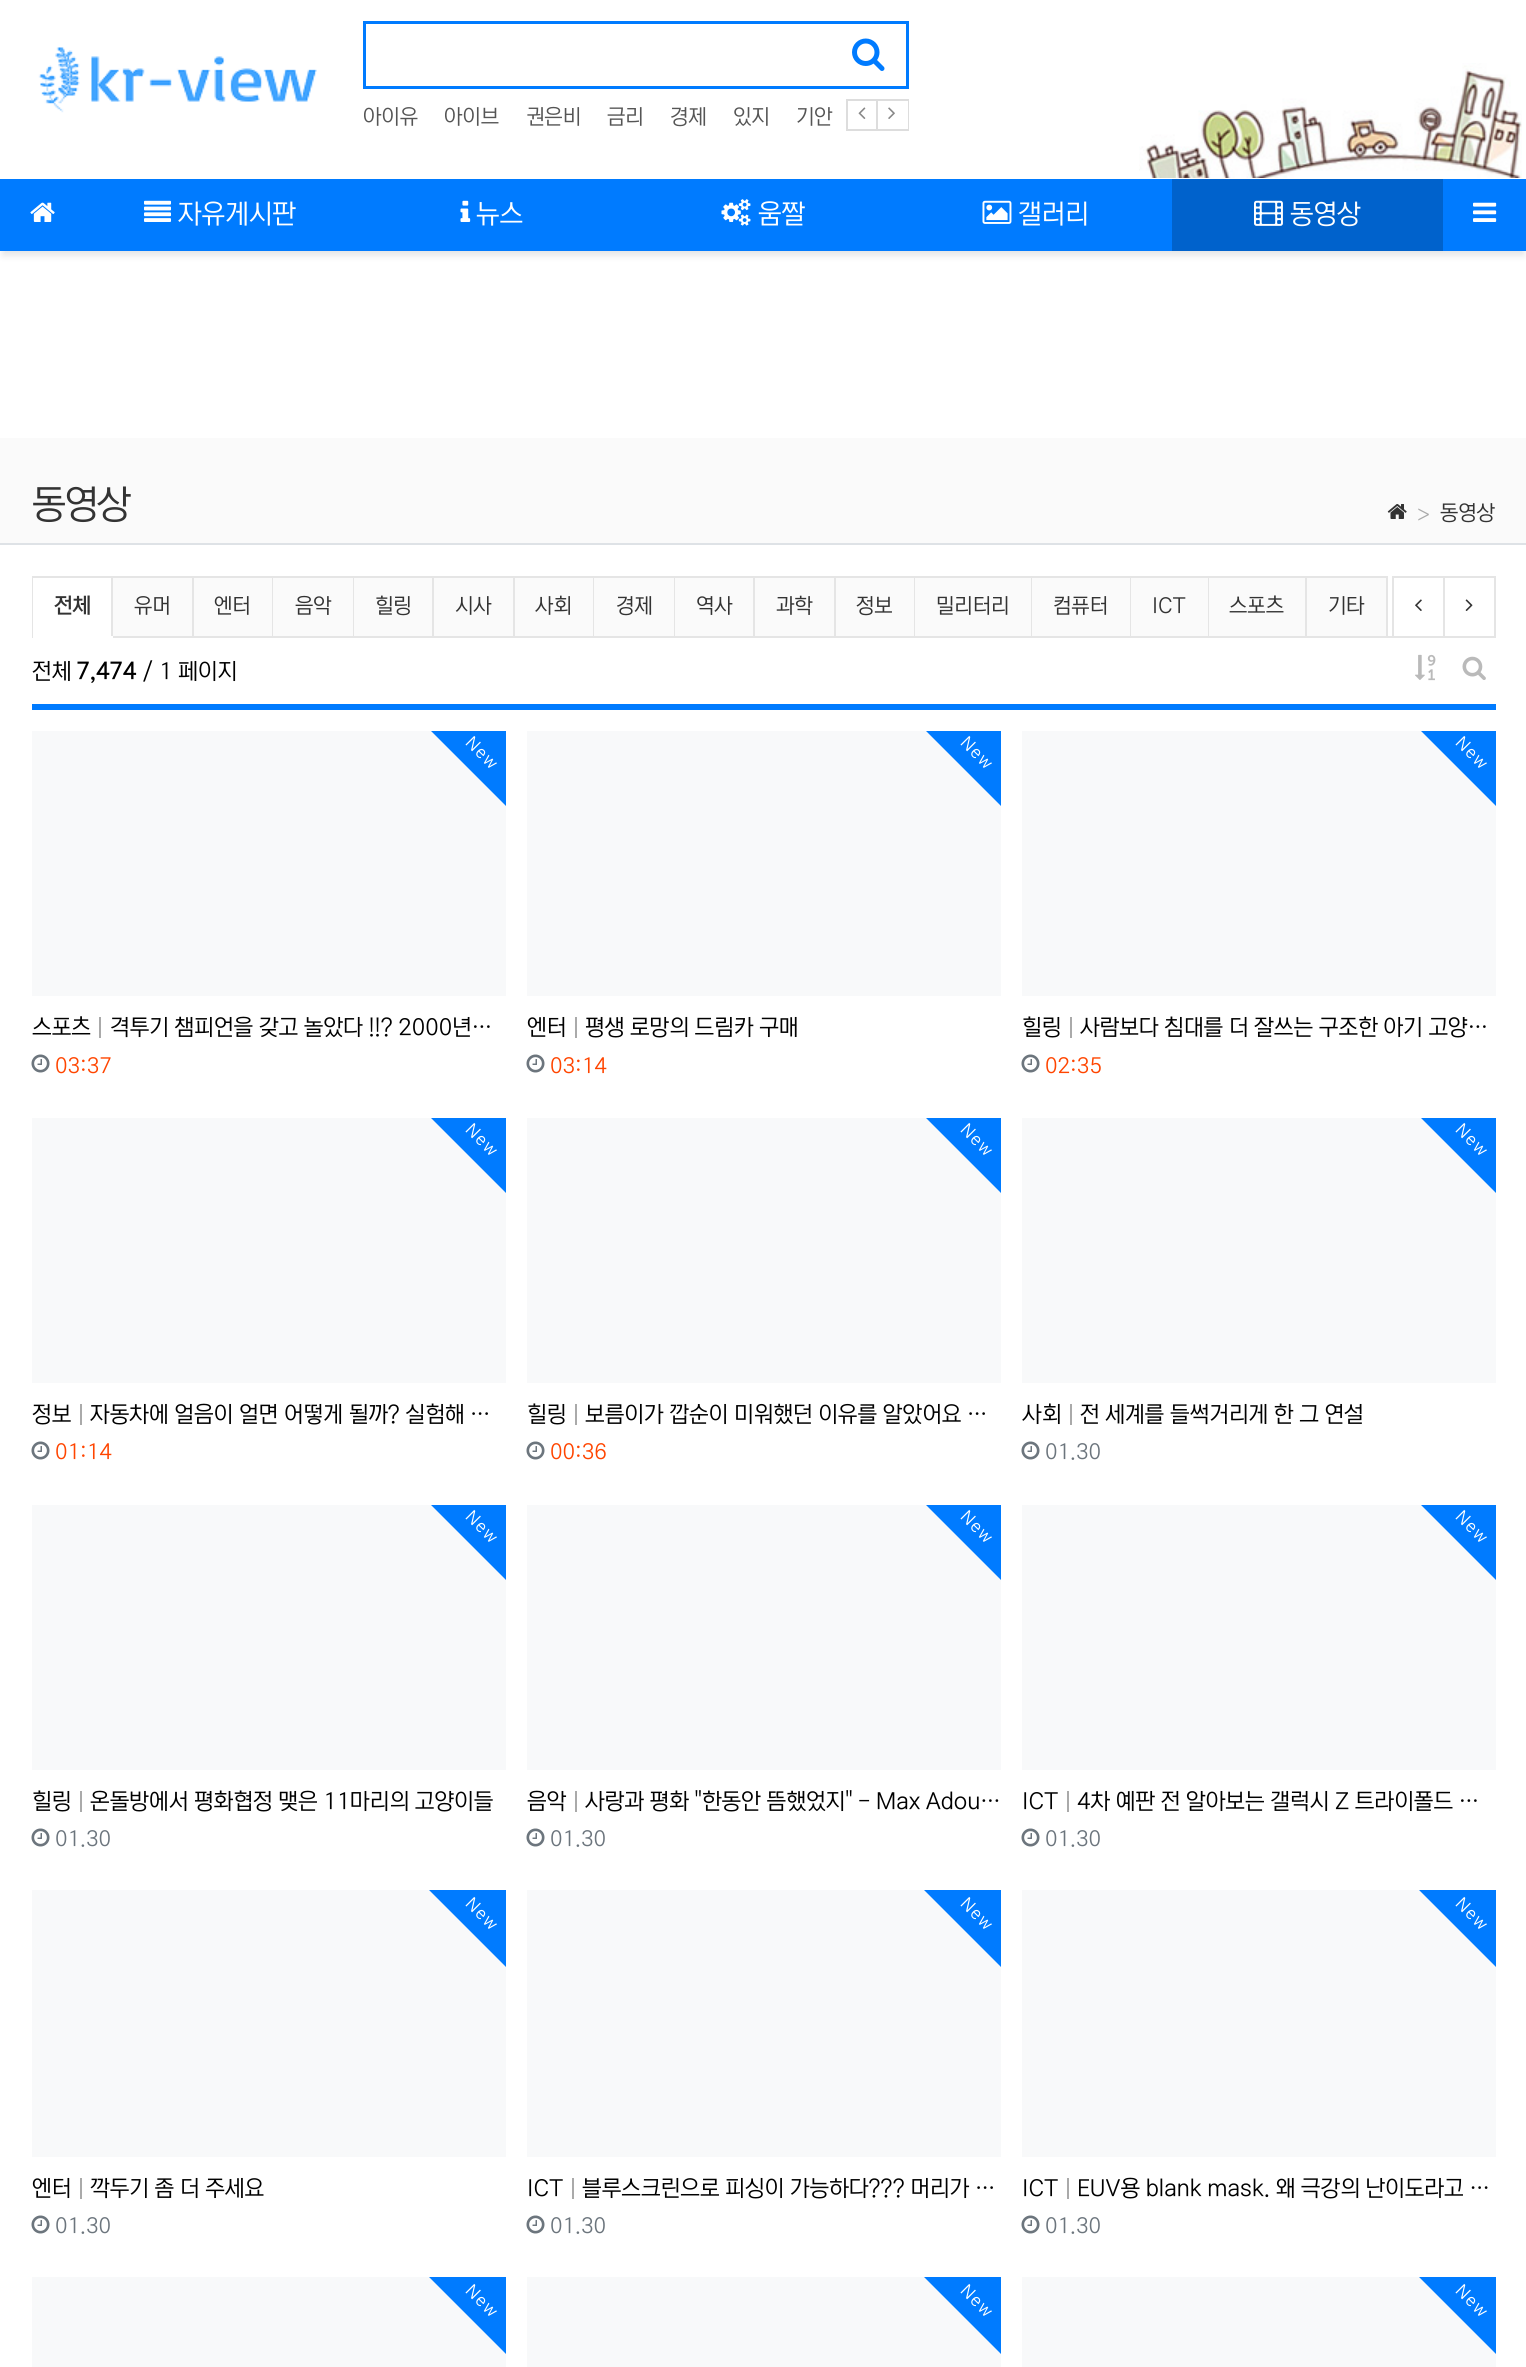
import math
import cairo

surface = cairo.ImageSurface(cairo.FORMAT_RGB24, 1526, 2367)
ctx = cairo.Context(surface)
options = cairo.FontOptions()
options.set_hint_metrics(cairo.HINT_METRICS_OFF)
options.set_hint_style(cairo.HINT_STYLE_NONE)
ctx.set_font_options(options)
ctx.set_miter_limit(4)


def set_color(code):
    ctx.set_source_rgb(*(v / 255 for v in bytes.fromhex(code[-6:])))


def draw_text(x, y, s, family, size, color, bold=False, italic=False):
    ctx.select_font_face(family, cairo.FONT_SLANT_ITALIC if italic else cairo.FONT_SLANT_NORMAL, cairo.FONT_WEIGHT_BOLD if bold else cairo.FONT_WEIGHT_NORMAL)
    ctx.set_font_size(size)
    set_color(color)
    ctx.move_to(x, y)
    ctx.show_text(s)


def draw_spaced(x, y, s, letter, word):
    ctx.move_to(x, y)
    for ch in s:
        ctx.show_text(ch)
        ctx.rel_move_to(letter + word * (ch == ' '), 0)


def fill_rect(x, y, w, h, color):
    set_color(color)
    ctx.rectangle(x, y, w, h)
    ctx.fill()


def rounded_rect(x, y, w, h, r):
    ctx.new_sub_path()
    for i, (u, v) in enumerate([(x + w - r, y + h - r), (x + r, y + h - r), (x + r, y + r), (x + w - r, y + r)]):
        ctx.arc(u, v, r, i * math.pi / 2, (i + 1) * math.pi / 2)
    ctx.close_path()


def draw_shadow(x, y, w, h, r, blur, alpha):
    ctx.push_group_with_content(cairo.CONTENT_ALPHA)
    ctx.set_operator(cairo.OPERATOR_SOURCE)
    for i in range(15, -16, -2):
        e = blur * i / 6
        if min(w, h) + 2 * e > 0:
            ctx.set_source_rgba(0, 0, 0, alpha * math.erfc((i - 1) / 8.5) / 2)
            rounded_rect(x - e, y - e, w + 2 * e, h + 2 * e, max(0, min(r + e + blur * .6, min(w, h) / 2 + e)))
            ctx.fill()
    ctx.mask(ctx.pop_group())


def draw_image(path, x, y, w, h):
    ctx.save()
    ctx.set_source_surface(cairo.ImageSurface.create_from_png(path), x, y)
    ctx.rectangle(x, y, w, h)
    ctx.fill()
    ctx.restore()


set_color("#ffffff")
ctx.paint()
draw_image("assets/img1.png", 1139, 63, 383, 115)
draw_image("assets/img2.png", 38, 47, 279, 66)
ctx.rectangle(364.5, 22.5, 543, 65)
set_color("#007bff")
ctx.set_line_width(3)
ctx.stroke()
draw_image("assets/img3.png", 852, 38, 33, 33)
draw_text(363, 123, "아이유", "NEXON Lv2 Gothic", 21, "#555555")
draw_text(444, 123, "아이브", "NEXON Lv2 Gothic", 21, "#555555")
draw_text(526, 123, "권은비", "NEXON Lv2 Gothic", 21, "#555555")
draw_text(607, 123, "금리", "NEXON Lv2 Gothic", 21, "#555555")
draw_text(670, 123, "경제", "NEXON Lv2 Gothic", 21, "#555555")
draw_text(733, 123, "있지", "NEXON Lv2 Gothic", 21, "#555555")
draw_text(796, 123, "기안", "NEXON Lv2 Gothic", 21, "#555555")
ctx.rectangle(847, 100, 30, 30)
set_color("#dddddd")
ctx.set_line_width(2)
ctx.stroke()
draw_image("assets/img4.png", 858, 107, 8, 12)
fill_rect(878, 99, 31, 2, "#dddddd")
fill_rect(908, 99, 1, 32, "#dddddd")
fill_rect(878, 129, 31, 2, "#dddddd")
draw_image("assets/img5.png", 888, 107, 7, 12)
set_color("#323c46")
draw_shadow(3, 189, 1521, 66, 0, 4, 0.15)
fill_rect(0, 179, 1526, 72, "#007bff")
draw_image("assets/img6.png", 30, 202, 25, 20)
draw_image("assets/img7.png", 144, 200, 27, 22)
draw_text(178, 222, "자유게시판", "NEXON Lv2 Gothic", 27, "#ffffff")
draw_image("assets/img8.png", 460, 200, 11, 22)
draw_text(476, 222, "뉴스", "NEXON Lv2 Gothic", 27, "#ffffff")
draw_image("assets/img9.png", 721, 199, 30, 27)
draw_text(758, 222, "움짤", "NEXON Lv2 Gothic", 27, "#ffffff")
draw_image("assets/img10.png", 982, 200, 30, 24)
draw_text(1018, 222, "갤러리", "NEXON Lv2 Gothic", 27, "#ffffff")
fill_rect(1172, 179, 271, 72, "#0062cc")
draw_image("assets/img11.png", 1254, 200, 29, 26)
draw_text(1290, 222, "동영상", "NEXON Lv2 Gothic", 27, "#ffffff")
draw_image("assets/img12.png", 1473, 202, 24, 20)
fill_rect(0, 438, 1526, 105, "#fafafa")
fill_rect(0, 543, 1526, 2, "#dee2e6")
ctx.set_font_size(39)
set_color("#333333")
draw_spaced(32, 516, "동영상", -1.5, 0)
draw_image("assets/img13.png", 1387, 504, 20, 15)
draw_text(1417, 522, ">", "Dotum", 21, "#aaaaaa")
draw_text(1440, 519, "동영상", "NEXON Lv2 Gothic", 21, "#333333")
fill_rect(32, 576, 1, 62, "#e5e5e5")
fill_rect(33, 576, 1355, 2, "#e5e5e5")
fill_rect(32, 636, 1360, 2, "#e5e5e5")
fill_rect(111, 576, 2, 62, "#e5e5e5")
fill_rect(33, 636, 80, 2, "#ffffff")
draw_text(54, 612, "전체", "NEXON Lv2 Gothic", 21, "#333333", bold=True)
fill_rect(113, 578, 79, 58, "#fafafa")
fill_rect(192, 576, 2, 62, "#e5e5e5")
draw_text(134, 612, "유머", "NEXON Lv2 Gothic", 21, "#333333")
fill_rect(194, 578, 78, 58, "#fafafa")
fill_rect(272, 576, 1, 62, "#e5e5e5")
draw_text(214, 612, "엔터", "NEXON Lv2 Gothic", 21, "#333333")
fill_rect(273, 578, 80, 58, "#fafafa")
fill_rect(353, 576, 1, 62, "#e5e5e5")
draw_text(295, 612, "음악", "NEXON Lv2 Gothic", 21, "#333333")
fill_rect(354, 578, 78, 58, "#fafafa")
fill_rect(432, 576, 2, 62, "#e5e5e5")
draw_text(375, 612, "힐링", "NEXON Lv2 Gothic", 21, "#333333")
fill_rect(434, 578, 79, 58, "#fafafa")
fill_rect(513, 576, 2, 62, "#e5e5e5")
draw_text(455, 612, "시사", "NEXON Lv2 Gothic", 21, "#333333")
fill_rect(515, 578, 78, 58, "#fafafa")
fill_rect(593, 576, 1, 62, "#e5e5e5")
draw_text(535, 612, "사회", "NEXON Lv2 Gothic", 21, "#333333")
fill_rect(594, 578, 80, 58, "#fafafa")
fill_rect(674, 576, 1, 62, "#e5e5e5")
draw_text(616, 612, "경제", "NEXON Lv2 Gothic", 21, "#333333")
fill_rect(675, 578, 78, 58, "#fafafa")
fill_rect(753, 576, 2, 62, "#e5e5e5")
draw_text(696, 612, "역사", "NEXON Lv2 Gothic", 21, "#333333")
fill_rect(755, 578, 79, 58, "#fafafa")
fill_rect(834, 576, 2, 62, "#e5e5e5")
draw_text(776, 612, "과학", "NEXON Lv2 Gothic", 21, "#333333")
fill_rect(836, 578, 78, 58, "#fafafa")
fill_rect(914, 576, 1, 62, "#e5e5e5")
draw_text(856, 612, "정보", "NEXON Lv2 Gothic", 21, "#333333")
fill_rect(915, 578, 116, 58, "#fafafa")
fill_rect(1031, 576, 1, 62, "#e5e5e5")
draw_text(936, 612, "밀리터리", "NEXON Lv2 Gothic", 21, "#333333")
fill_rect(1032, 578, 98, 58, "#fafafa")
fill_rect(1130, 576, 1, 62, "#e5e5e5")
draw_text(1053, 612, "컴퓨터", "NEXON Lv2 Gothic", 21, "#333333")
fill_rect(1131, 578, 77, 58, "#fafafa")
fill_rect(1208, 576, 1, 62, "#e5e5e5")
draw_text(1152, 612, "ICT", "NEXON Lv2 Gothic", 21, "#333333")
fill_rect(1209, 578, 96, 58, "#fafafa")
fill_rect(1305, 576, 2, 62, "#e5e5e5")
draw_text(1229, 612, "스포츠", "NEXON Lv2 Gothic", 21, "#333333")
fill_rect(1307, 578, 79, 58, "#fafafa")
fill_rect(1386, 576, 2, 62, "#e5e5e5")
draw_text(1328, 612, "기타", "NEXON Lv2 Gothic", 21, "#333333")
ctx.rectangle(1393, 577, 51, 60)
set_color("#e5e5e5")
ctx.stroke()
draw_image("assets/img14.png", 1415, 599, 7, 12)
fill_rect(1445, 576, 51, 2, "#e5e5e5")
fill_rect(1494, 576, 2, 62, "#e5e5e5")
fill_rect(1445, 636, 51, 2, "#e5e5e5")
draw_image("assets/img15.png", 1465, 599, 8, 12)
draw_text(32, 678, "전체", "NEXON Lv2 Gothic", 22.5, "#000000")
draw_text(76, 678, "7,474", "NEXON Lv2 Gothic", 22.5, "#000000", bold=True)
draw_text(142, 678, "/ 1 페이지", "NEXON Lv2 Gothic", 22.5, "#000000")
draw_image("assets/img16.png", 1415, 654, 21, 27)
draw_image("assets/img17.png", 1462, 656, 24, 24)
fill_rect(32, 704, 1464, 6, "#007bff")
fill_rect(32, 731, 474, 265, "#f8f9fa")
ctx.save()
ctx.rectangle(32, 731, 474, 265)
ctx.clip()
set_color("#007bff")
ctx.new_path()
ctx.move_to(439, 649)
ctx.line_to(587, 797)
ctx.line_to(542, 842)
ctx.line_to(394, 694)
ctx.close_path()
ctx.fill()
ctx.restore()
ctx.set_font_size(16.5)
set_color("#ffffff")
ctx.save()
ctx.translate(465, 743)
ctx.rotate(45 * math.pi / 180)
draw_spaced(0, 0, "New", 1.5, 0)
ctx.restore()
draw_text(32, 1034, "스포츠", "NEXON Lv2 Gothic", 22.5, "#000000")
fill_rect(99, 1017, 2, 21, "#aaaaaa")
draw_text(110, 1034, "격투기 챔피언을 갖고 놀았다 !!? 2000년…", "NEXON Lv2 Gothic", 22.5, "#000000")
draw_image("assets/img18.png", 31, 1054, 19, 19)
draw_text(55, 1072, "03:37", "NEXON Lv2 Gothic", 21, "#ff4500")
fill_rect(527, 731, 474, 265, "#f8f9fa")
ctx.save()
ctx.rectangle(527, 731, 474, 265)
ctx.clip()
set_color("#007bff")
ctx.new_path()
ctx.move_to(934, 649)
ctx.line_to(1082, 797)
ctx.line_to(1037, 842)
ctx.line_to(889, 694)
ctx.close_path()
ctx.fill()
ctx.restore()
ctx.set_font_size(16.5)
set_color("#ffffff")
ctx.save()
ctx.translate(960, 743)
ctx.rotate(45 * math.pi / 180)
draw_spaced(0, 0, "New", 1.5, 0)
ctx.restore()
draw_text(527, 1034, "엔터", "NEXON Lv2 Gothic", 22.5, "#000000")
fill_rect(575, 1017, 2, 21, "#aaaaaa")
draw_text(585, 1034, "평생 로망의 드림카 구매", "NEXON Lv2 Gothic", 22.5, "#000000")
draw_image("assets/img18.png", 526, 1054, 19, 19)
draw_text(550, 1072, "03:14", "NEXON Lv2 Gothic", 21, "#ff4500")
fill_rect(1022, 731, 474, 265, "#f8f9fa")
ctx.save()
ctx.rectangle(1022, 731, 474, 265)
ctx.clip()
set_color("#007bff")
ctx.new_path()
ctx.move_to(1429, 649)
ctx.line_to(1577, 797)
ctx.line_to(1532, 842)
ctx.line_to(1384, 694)
ctx.close_path()
ctx.fill()
ctx.restore()
ctx.set_font_size(16.5)
set_color("#ffffff")
ctx.save()
ctx.translate(1455, 743)
ctx.rotate(45 * math.pi / 180)
draw_spaced(0, 0, "New", 1.5, 0)
ctx.restore()
draw_text(1022, 1034, "힐링", "NEXON Lv2 Gothic", 22.5, "#000000")
fill_rect(1070, 1017, 2, 21, "#aaaaaa")
draw_text(1080, 1034, "사람보다 침대를 더 잘쓰는 구조한 아기 고양…", "NEXON Lv2 Gothic", 22.5, "#000000")
draw_image("assets/img18.png", 1021, 1054, 19, 19)
draw_text(1045, 1072, "02:35", "NEXON Lv2 Gothic", 21, "#ff4500")
fill_rect(32, 1118, 474, 265, "#f8f9fa")
ctx.save()
ctx.rectangle(32, 1118, 474, 265)
ctx.clip()
set_color("#007bff")
ctx.new_path()
ctx.move_to(439, 1035)
ctx.line_to(587, 1184)
ctx.line_to(542, 1229)
ctx.line_to(394, 1081)
ctx.close_path()
ctx.fill()
ctx.restore()
ctx.set_font_size(16.5)
set_color("#ffffff")
ctx.save()
ctx.translate(465, 1130)
ctx.rotate(45 * math.pi / 180)
draw_spaced(0, 0, "New", 1.5, 0)
ctx.restore()
draw_text(32, 1421, "정보", "NEXON Lv2 Gothic", 22.5, "#000000")
fill_rect(80, 1404, 2, 21, "#aaaaaa")
draw_text(90, 1421, "자동차에 얼음이 얼면 어떻게 될까? 실험해 …", "NEXON Lv2 Gothic", 22.5, "#000000")
draw_image("assets/img18.png", 31, 1441, 19, 19)
draw_text(55, 1458, "01:14", "NEXON Lv2 Gothic", 21, "#ff4500")
fill_rect(527, 1118, 474, 265, "#f8f9fa")
ctx.save()
ctx.rectangle(527, 1118, 474, 265)
ctx.clip()
set_color("#007bff")
ctx.new_path()
ctx.move_to(934, 1035)
ctx.line_to(1082, 1184)
ctx.line_to(1037, 1229)
ctx.line_to(889, 1081)
ctx.close_path()
ctx.fill()
ctx.restore()
ctx.set_font_size(16.5)
set_color("#ffffff")
ctx.save()
ctx.translate(960, 1130)
ctx.rotate(45 * math.pi / 180)
draw_spaced(0, 0, "New", 1.5, 0)
ctx.restore()
draw_text(527, 1421, "힐링", "NEXON Lv2 Gothic", 22.5, "#000000")
fill_rect(575, 1404, 2, 21, "#aaaaaa")
draw_text(585, 1421, "보름이가 깝순이 미워했던 이유를 알았어요 …", "NEXON Lv2 Gothic", 22.5, "#000000")
draw_image("assets/img18.png", 526, 1441, 19, 19)
draw_text(550, 1458, "00:36", "NEXON Lv2 Gothic", 21, "#ff4500")
fill_rect(1022, 1118, 474, 265, "#f8f9fa")
ctx.save()
ctx.rectangle(1022, 1118, 474, 265)
ctx.clip()
set_color("#007bff")
ctx.new_path()
ctx.move_to(1429, 1035)
ctx.line_to(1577, 1184)
ctx.line_to(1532, 1229)
ctx.line_to(1384, 1081)
ctx.close_path()
ctx.fill()
ctx.restore()
ctx.set_font_size(16.5)
set_color("#ffffff")
ctx.save()
ctx.translate(1455, 1130)
ctx.rotate(45 * math.pi / 180)
draw_spaced(0, 0, "New", 1.5, 0)
ctx.restore()
draw_text(1022, 1421, "사회", "NEXON Lv2 Gothic", 22.5, "#000000")
fill_rect(1070, 1404, 2, 21, "#aaaaaa")
draw_text(1080, 1421, "전 세계를 들썩거리게 한 그 연설", "NEXON Lv2 Gothic", 22.5, "#000000")
draw_image("assets/img18.png", 1021, 1441, 19, 19)
draw_text(1045, 1458, "01.30", "NEXON Lv2 Gothic", 21, "#6c757d")
fill_rect(32, 1505, 474, 265, "#f8f9fa")
ctx.save()
ctx.rectangle(32, 1505, 474, 265)
ctx.clip()
set_color("#007bff")
ctx.new_path()
ctx.move_to(439, 1422)
ctx.line_to(587, 1571)
ctx.line_to(542, 1616)
ctx.line_to(394, 1468)
ctx.close_path()
ctx.fill()
ctx.restore()
ctx.set_font_size(16.5)
set_color("#ffffff")
ctx.save()
ctx.translate(465, 1517)
ctx.rotate(45 * math.pi / 180)
draw_spaced(0, 0, "New", 1.5, 0)
ctx.restore()
draw_text(32, 1808, "힐링", "NEXON Lv2 Gothic", 22.5, "#000000")
fill_rect(80, 1791, 2, 21, "#aaaaaa")
draw_text(90, 1808, "온돌방에서 평화협정 맺은 11마리의 고양이들", "NEXON Lv2 Gothic", 22.5, "#000000")
draw_image("assets/img18.png", 31, 1828, 19, 19)
draw_text(55, 1845, "01.30", "NEXON Lv2 Gothic", 21, "#6c757d")
fill_rect(527, 1505, 474, 265, "#f8f9fa")
ctx.save()
ctx.rectangle(527, 1505, 474, 265)
ctx.clip()
set_color("#007bff")
ctx.new_path()
ctx.move_to(934, 1422)
ctx.line_to(1082, 1571)
ctx.line_to(1037, 1616)
ctx.line_to(889, 1468)
ctx.close_path()
ctx.fill()
ctx.restore()
ctx.set_font_size(16.5)
set_color("#ffffff")
ctx.save()
ctx.translate(960, 1517)
ctx.rotate(45 * math.pi / 180)
draw_spaced(0, 0, "New", 1.5, 0)
ctx.restore()
draw_text(527, 1808, "음악", "NEXON Lv2 Gothic", 22.5, "#000000")
fill_rect(575, 1791, 2, 21, "#aaaaaa")
draw_text(585, 1808, "사랑과 평화 \"한동안 뜸했었지\" - Max Adou…", "NEXON Lv2 Gothic", 22.5, "#000000")
draw_image("assets/img18.png", 526, 1828, 19, 19)
draw_text(550, 1845, "01.30", "NEXON Lv2 Gothic", 21, "#6c757d")
fill_rect(1022, 1505, 474, 265, "#f8f9fa")
ctx.save()
ctx.rectangle(1022, 1505, 474, 265)
ctx.clip()
set_color("#007bff")
ctx.new_path()
ctx.move_to(1429, 1422)
ctx.line_to(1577, 1571)
ctx.line_to(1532, 1616)
ctx.line_to(1384, 1468)
ctx.close_path()
ctx.fill()
ctx.restore()
ctx.set_font_size(16.5)
set_color("#ffffff")
ctx.save()
ctx.translate(1455, 1517)
ctx.rotate(45 * math.pi / 180)
draw_spaced(0, 0, "New", 1.5, 0)
ctx.restore()
draw_text(1022, 1808, "ICT", "NEXON Lv2 Gothic", 22.5, "#000000")
fill_rect(1067, 1791, 2, 21, "#aaaaaa")
draw_text(1077, 1808, "4차 예판 전 알아보는 갤럭시 Z 트라이폴드 …", "NEXON Lv2 Gothic", 22.5, "#000000")
draw_image("assets/img18.png", 1021, 1828, 19, 19)
draw_text(1045, 1845, "01.30", "NEXON Lv2 Gothic", 21, "#6c757d")
fill_rect(32, 1890, 474, 267, "#f8f9fa")
ctx.save()
ctx.rectangle(32, 1890, 474, 267)
ctx.clip()
set_color("#007bff")
ctx.new_path()
ctx.move_to(439, 1809)
ctx.line_to(587, 1958)
ctx.line_to(542, 2003)
ctx.line_to(394, 1855)
ctx.close_path()
ctx.fill()
ctx.restore()
ctx.set_font_size(16.5)
set_color("#ffffff")
ctx.save()
ctx.translate(465, 1904)
ctx.rotate(45 * math.pi / 180)
draw_spaced(0, 0, "New", 1.5, 0)
ctx.restore()
draw_text(32, 2195, "엔터", "NEXON Lv2 Gothic", 22.5, "#000000")
fill_rect(80, 2178, 2, 21, "#aaaaaa")
draw_text(90, 2195, "깍두기 좀 더 주세요", "NEXON Lv2 Gothic", 22.5, "#000000")
draw_image("assets/img18.png", 31, 2215, 19, 19)
draw_text(55, 2232, "01.30", "NEXON Lv2 Gothic", 21, "#6c757d")
fill_rect(527, 1890, 474, 267, "#f8f9fa")
ctx.save()
ctx.rectangle(527, 1890, 474, 267)
ctx.clip()
set_color("#007bff")
ctx.new_path()
ctx.move_to(934, 1809)
ctx.line_to(1082, 1958)
ctx.line_to(1037, 2003)
ctx.line_to(889, 1855)
ctx.close_path()
ctx.fill()
ctx.restore()
ctx.set_font_size(16.5)
set_color("#ffffff")
ctx.save()
ctx.translate(960, 1904)
ctx.rotate(45 * math.pi / 180)
draw_spaced(0, 0, "New", 1.5, 0)
ctx.restore()
draw_text(527, 2195, "ICT", "NEXON Lv2 Gothic", 22.5, "#000000")
fill_rect(572, 2178, 2, 21, "#aaaaaa")
draw_text(582, 2195, "블루스크린으로 피싱이 가능하다??? 머리가 …", "NEXON Lv2 Gothic", 22.5, "#000000")
draw_image("assets/img18.png", 526, 2215, 19, 19)
draw_text(550, 2232, "01.30", "NEXON Lv2 Gothic", 21, "#6c757d")
fill_rect(1022, 1890, 474, 267, "#f8f9fa")
ctx.save()
ctx.rectangle(1022, 1890, 474, 267)
ctx.clip()
set_color("#007bff")
ctx.new_path()
ctx.move_to(1429, 1809)
ctx.line_to(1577, 1958)
ctx.line_to(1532, 2003)
ctx.line_to(1384, 1855)
ctx.close_path()
ctx.fill()
ctx.restore()
ctx.set_font_size(16.5)
set_color("#ffffff")
ctx.save()
ctx.translate(1455, 1904)
ctx.rotate(45 * math.pi / 180)
draw_spaced(0, 0, "New", 1.5, 0)
ctx.restore()
draw_text(1022, 2195, "ICT", "NEXON Lv2 Gothic", 22.5, "#000000")
fill_rect(1067, 2178, 2, 21, "#aaaaaa")
draw_text(1077, 2195, "EUV용 blank mask. 왜 극강의 난이도라고 …", "NEXON Lv2 Gothic", 22.5, "#000000")
draw_image("assets/img18.png", 1021, 2215, 19, 19)
draw_text(1045, 2232, "01.30", "NEXON Lv2 Gothic", 21, "#6c757d")
fill_rect(32, 2277, 474, 90, "#f8f9fa")
ctx.save()
ctx.rectangle(32, 2277, 474, 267)
ctx.clip()
set_color("#007bff")
ctx.new_path()
ctx.move_to(439, 2196)
ctx.line_to(587, 2345)
ctx.line_to(542, 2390)
ctx.line_to(394, 2242)
ctx.close_path()
ctx.fill()
ctx.restore()
ctx.set_font_size(16.5)
set_color("#ffffff")
ctx.save()
ctx.translate(465, 2291)
ctx.rotate(45 * math.pi / 180)
draw_spaced(0, 0, "New", 1.5, 0)
ctx.restore()
fill_rect(527, 2277, 474, 90, "#f8f9fa")
ctx.save()
ctx.rectangle(527, 2277, 474, 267)
ctx.clip()
set_color("#007bff")
ctx.new_path()
ctx.move_to(934, 2196)
ctx.line_to(1082, 2345)
ctx.line_to(1037, 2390)
ctx.line_to(889, 2242)
ctx.close_path()
ctx.fill()
ctx.restore()
set_color("#ffffff")
ctx.save()
ctx.translate(960, 2291)
ctx.rotate(45 * math.pi / 180)
draw_spaced(0, 0, "New", 1.5, 0)
ctx.restore()
fill_rect(1022, 2277, 474, 90, "#f8f9fa")
ctx.save()
ctx.rectangle(1022, 2277, 474, 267)
ctx.clip()
set_color("#007bff")
ctx.new_path()
ctx.move_to(1429, 2196)
ctx.line_to(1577, 2345)
ctx.line_to(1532, 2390)
ctx.line_to(1384, 2242)
ctx.close_path()
ctx.fill()
ctx.restore()
set_color("#ffffff")
ctx.save()
ctx.translate(1455, 2291)
ctx.rotate(45 * math.pi / 180)
draw_spaced(0, 0, "New", 1.5, 0)
ctx.restore()
surface.write_to_png("output.png")
